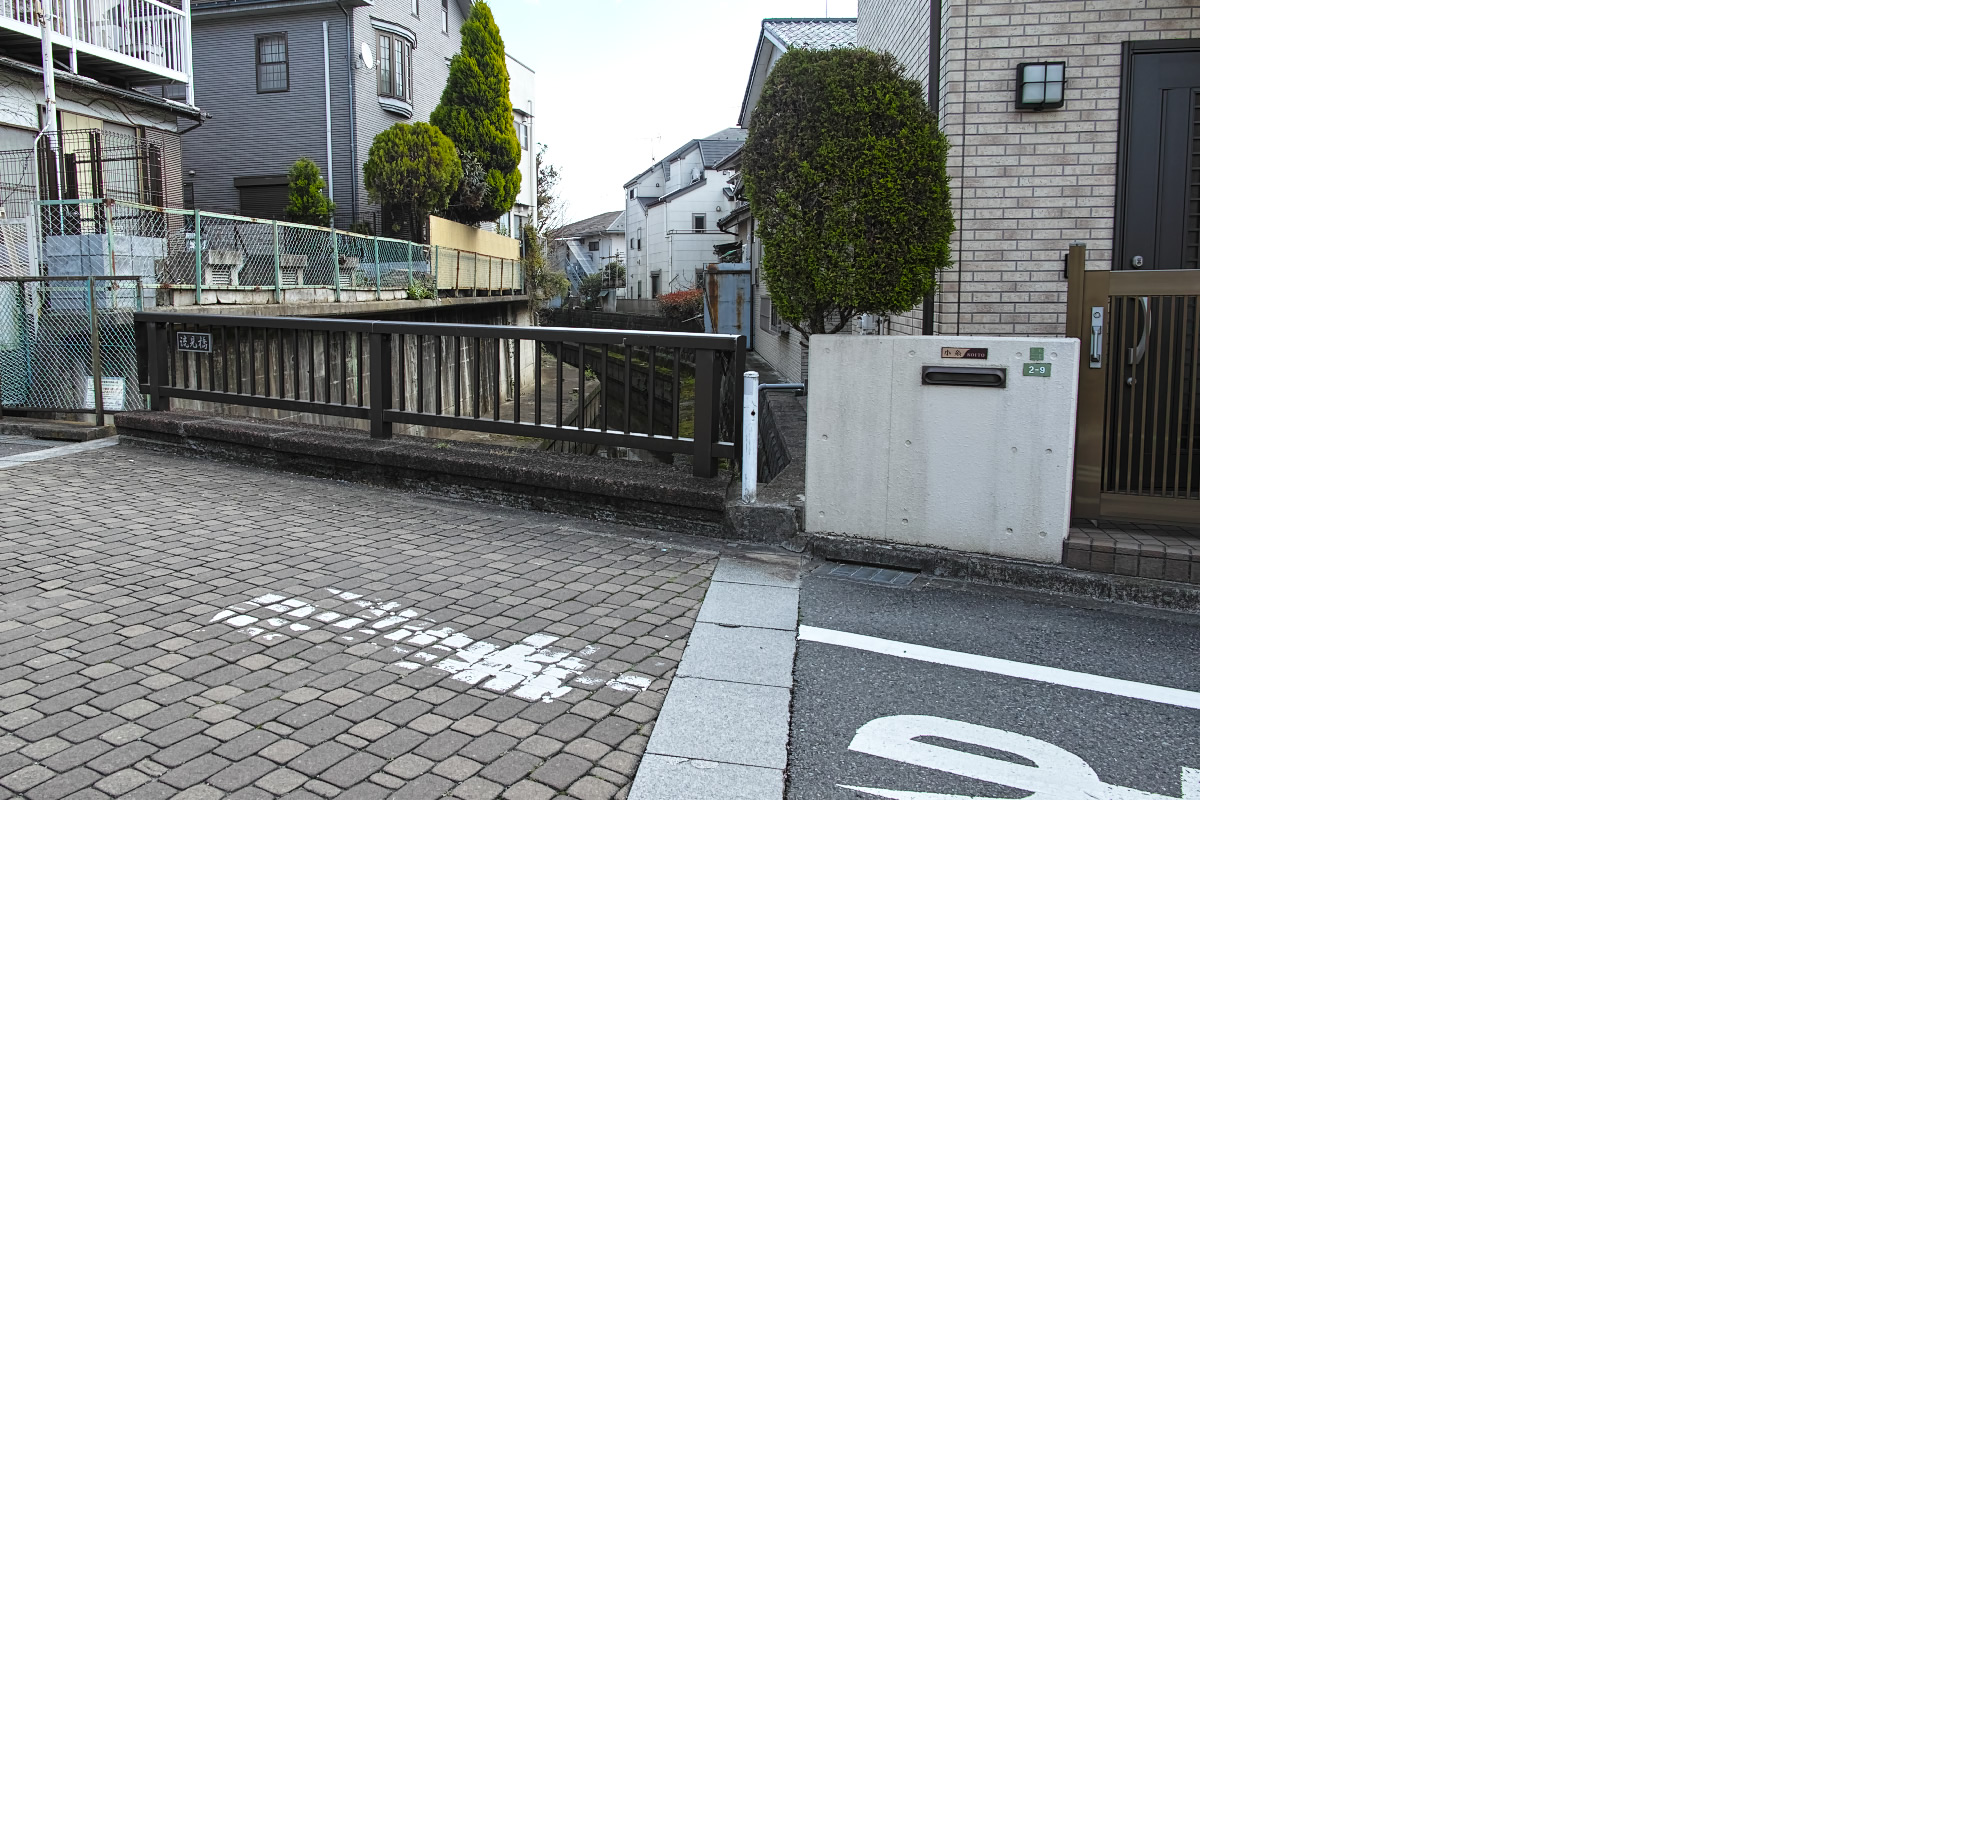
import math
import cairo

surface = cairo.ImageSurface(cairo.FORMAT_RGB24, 1964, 1836)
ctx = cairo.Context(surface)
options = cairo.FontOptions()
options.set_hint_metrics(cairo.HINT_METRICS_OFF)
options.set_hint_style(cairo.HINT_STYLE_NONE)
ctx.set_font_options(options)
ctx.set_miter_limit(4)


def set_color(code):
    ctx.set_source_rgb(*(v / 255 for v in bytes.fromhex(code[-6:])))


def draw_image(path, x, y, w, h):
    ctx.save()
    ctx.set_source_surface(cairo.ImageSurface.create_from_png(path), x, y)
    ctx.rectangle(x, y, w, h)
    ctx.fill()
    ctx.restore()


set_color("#ffffff")
ctx.paint()
draw_image("assets/img1.png", 0, 0, 1200, 800)
surface.write_to_png("output.png")
